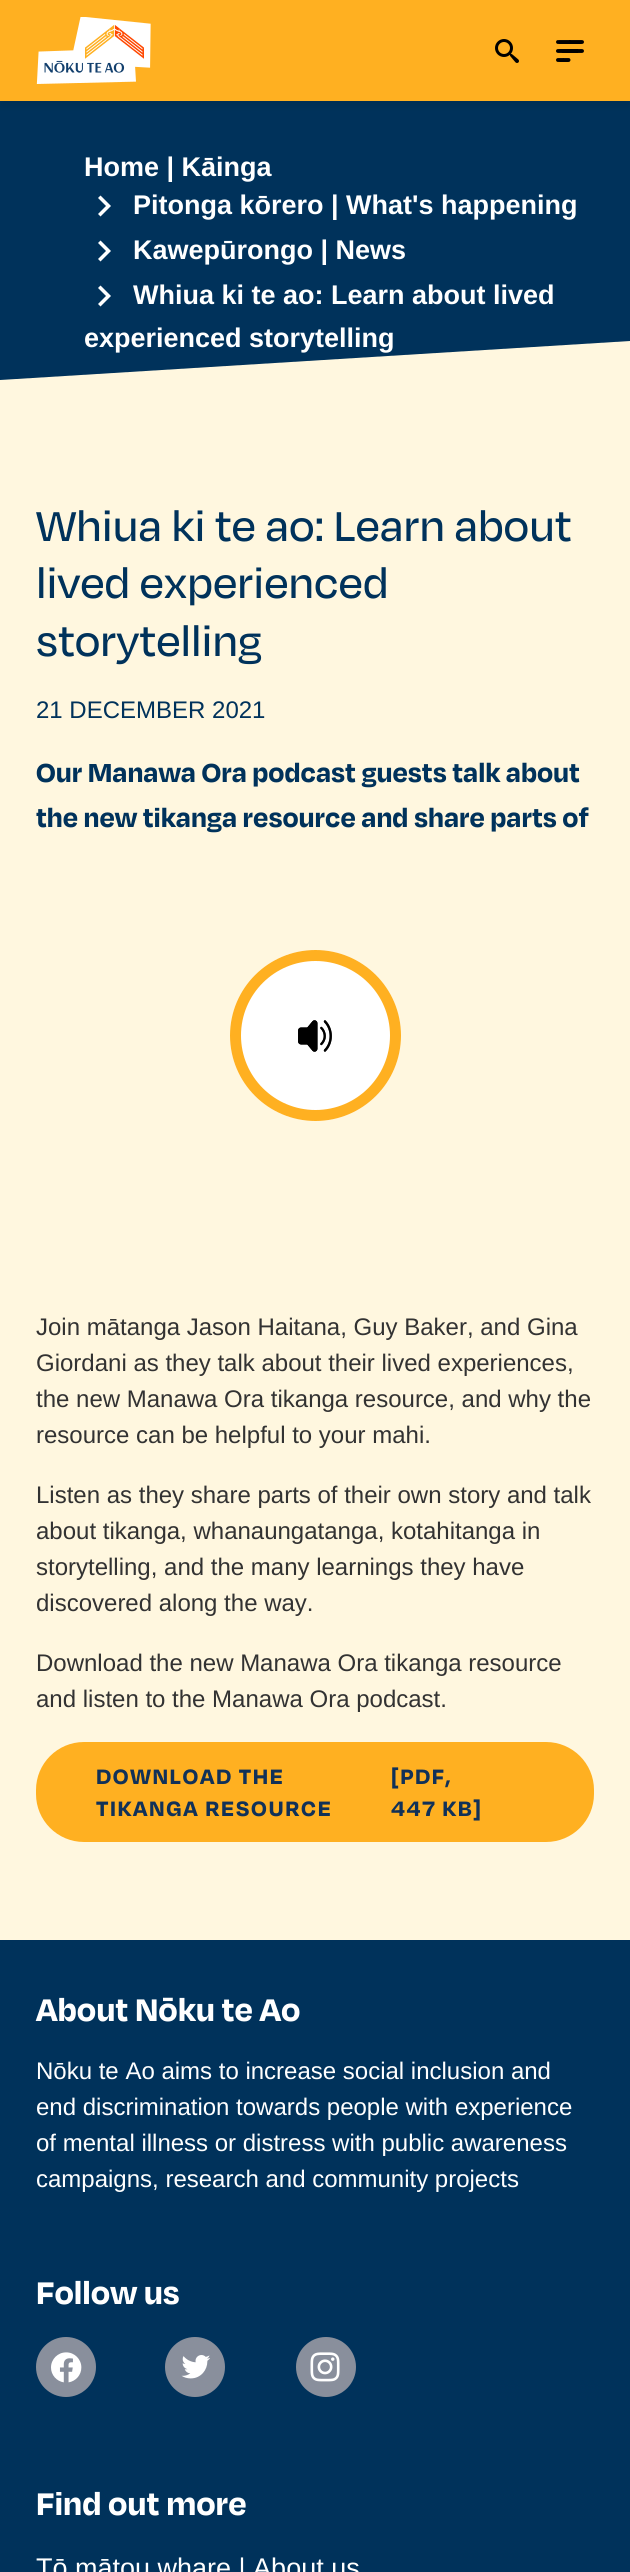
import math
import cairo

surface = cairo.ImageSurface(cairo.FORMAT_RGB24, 630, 2572)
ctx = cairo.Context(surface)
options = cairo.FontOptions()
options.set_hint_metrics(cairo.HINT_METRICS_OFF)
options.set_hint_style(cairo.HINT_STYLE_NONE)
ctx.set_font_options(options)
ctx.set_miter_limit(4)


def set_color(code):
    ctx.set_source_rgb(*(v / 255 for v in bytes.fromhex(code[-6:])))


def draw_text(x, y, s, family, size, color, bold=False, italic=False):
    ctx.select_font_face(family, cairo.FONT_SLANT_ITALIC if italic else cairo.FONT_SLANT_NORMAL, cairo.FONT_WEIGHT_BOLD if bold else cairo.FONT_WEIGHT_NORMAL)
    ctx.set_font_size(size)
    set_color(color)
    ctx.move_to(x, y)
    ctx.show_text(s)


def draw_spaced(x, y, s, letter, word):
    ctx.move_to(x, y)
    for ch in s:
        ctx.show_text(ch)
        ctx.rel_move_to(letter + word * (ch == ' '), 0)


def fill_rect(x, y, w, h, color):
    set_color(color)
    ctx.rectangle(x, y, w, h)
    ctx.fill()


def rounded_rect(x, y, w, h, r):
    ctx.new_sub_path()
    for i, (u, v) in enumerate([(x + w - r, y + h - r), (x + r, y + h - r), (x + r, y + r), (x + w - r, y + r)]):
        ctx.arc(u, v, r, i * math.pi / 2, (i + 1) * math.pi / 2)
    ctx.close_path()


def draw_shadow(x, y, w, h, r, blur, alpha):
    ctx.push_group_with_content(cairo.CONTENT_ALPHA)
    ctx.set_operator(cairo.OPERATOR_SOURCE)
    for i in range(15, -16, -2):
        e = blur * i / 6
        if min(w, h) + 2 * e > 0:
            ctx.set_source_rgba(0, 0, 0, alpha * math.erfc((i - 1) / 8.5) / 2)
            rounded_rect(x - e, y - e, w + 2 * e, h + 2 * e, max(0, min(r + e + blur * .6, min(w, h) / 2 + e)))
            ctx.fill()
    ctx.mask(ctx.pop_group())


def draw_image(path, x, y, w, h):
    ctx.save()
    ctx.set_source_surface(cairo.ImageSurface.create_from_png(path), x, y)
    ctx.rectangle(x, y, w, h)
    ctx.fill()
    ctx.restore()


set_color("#fff7df")
ctx.paint()
set_color("#00325b")
ctx.new_path()
ctx.move_to(630, 101)
ctx.line_to(0, 101)
ctx.line_to(0, 380)
ctx.line_to(630, 341)
ctx.close_path()
ctx.fill()
set_color("#000000")
draw_shadow(0, 6, 630, 101, 0, 3, 0.08)
fill_rect(0, 0, 630, 101, "#ffb021")
draw_image("assets/img1.png", 36, 17, 115, 67)
draw_image("assets/img2.png", 495, 39, 24, 24)
draw_image("assets/img3.png", 556, 40, 28, 22)
draw_text(84, 176, "Home | Kāinga", "Liberation Sans", 27, "#ffffff", bold=True)
ctx.new_path()
ctx.move_to(98, 214)
ctx.line_to(106, 206)
ctx.line_to(98, 198)
ctx.line_to(100.5, 195.5)
ctx.line_to(111, 206)
ctx.line_to(100.5, 216.5)
ctx.close_path()
ctx.fill()
draw_text(133, 214, "Pitonga kōrero | What's happening", "Liberation Sans", 27, "#ffffff", bold=True)
ctx.new_path()
ctx.move_to(98, 259)
ctx.line_to(106, 251)
ctx.line_to(98, 243)
ctx.line_to(100.5, 240.5)
ctx.line_to(111, 251)
ctx.line_to(100.5, 261.5)
ctx.close_path()
ctx.fill()
draw_text(133, 259, "Kawepūrongo | News", "Liberation Sans", 27, "#ffffff", bold=True)
ctx.new_path()
ctx.move_to(98, 304)
ctx.line_to(106, 296)
ctx.line_to(98, 288)
ctx.line_to(100.5, 285.5)
ctx.line_to(111, 296)
ctx.line_to(100.5, 306.5)
ctx.close_path()
ctx.fill()
draw_text(133, 304, "Whiua ki te ao: Learn about lived", "Liberation Sans", 27, "#ffffff", bold=True)
draw_text(84, 347, "experienced storytelling", "Liberation Sans", 27, "#ffffff", bold=True)
draw_text(36, 541, "Whiua ki te ao: Learn about", "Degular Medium", 48, "#00325b")
draw_text(36, 598, "lived experienced", "Degular Medium", 48, "#00325b")
draw_text(36, 656, "storytelling", "Degular Medium", 48, "#00325b")
draw_text(36, 718, "21 DECEMBER 2021", "Liberation Sans", 24, "#00325b")
draw_text(36, 782, "Our Manawa Ora podcast guests talk about", "Degular", 30, "#00325b", bold=True)
draw_text(36, 827, "the new tikanga resource and share parts of", "Degular", 30, "#00325b", bold=True)
set_color("#ffffff")
ctx.new_path()
ctx.arc(315.5, 1035.5, 85.5, 0, 2 * math.pi)
ctx.fill()
draw_image("assets/img4.png", 298, 1020, 34, 32)
ctx.arc(315.5, 1035.5, 80, 0, 2 * math.pi)
set_color("#ffb021")
ctx.set_line_width(11)
ctx.stroke()
draw_text(36, 1335, "Join mātanga Jason Haitana, Guy Baker, and Gina", "Liberation Sans", 24, "#323232")
draw_text(36, 1371, "Giordani as they talk about their lived experiences,", "Liberation Sans", 24, "#323232")
draw_text(36, 1407, "the new Manawa Ora tikanga resource, and why the", "Liberation Sans", 24, "#323232")
draw_text(36, 1443, "resource can be helpful to your mahi.", "Liberation Sans", 24, "#323232")
draw_text(36, 1503, "Listen as they share parts of their own story and talk", "Liberation Sans", 24, "#323232")
draw_text(36, 1539, "about tikanga, whanaungatanga, kotahitanga in", "Liberation Sans", 24, "#323232")
draw_text(36, 1575, "storytelling, and the many learnings they have", "Liberation Sans", 24, "#323232")
draw_text(36, 1611, "discovered along the way.", "Liberation Sans", 24, "#323232")
draw_text(36, 1671, "Download the new Manawa Ora tikanga resource", "Liberation Sans", 24, "#323232")
draw_text(36, 1707, "and listen to the Manawa Ora podcast.", "Liberation Sans", 24, "#323232")
set_color("#ffb021")
rounded_rect(36, 1742, 558, 100, 48)
ctx.fill()
ctx.select_font_face("Degular", cairo.FONT_SLANT_NORMAL, cairo.FONT_WEIGHT_BOLD)
set_color("#113158")
draw_spaced(96, 1784, "DOWNLOAD THE", 1.6, 0)
draw_spaced(391, 1784, "[PDF,", 1.6, 0)
draw_spaced(391, 1816, "447 KB]", 1.6, 0)
draw_spaced(96, 1816, "TIKANGA RESOURCE", 1.6, 0)
fill_rect(0, 1940, 630, 632, "#00325b")
draw_text(36, 2021, "About Nōku te Ao", "Degular", 36, "#ffffff", bold=True)
draw_text(36, 2079, "Nōku te Ao aims to increase social inclusion and", "Liberation Sans", 24, "#ffffff")
draw_text(36, 2115, "end discrimination towards people with experience", "Liberation Sans", 24, "#ffffff")
draw_text(36, 2151, "of mental illness or distress with public awareness", "Liberation Sans", 24, "#ffffff")
draw_text(36, 2187, "campaigns, research and community projects", "Liberation Sans", 24, "#ffffff")
draw_text(36, 2304, "Follow us", "Degular", 36, "#ffffff", bold=True)
set_color("#898f9c")
ctx.new_path()
ctx.arc(66, 2367, 30, 0, 2 * math.pi)
ctx.fill()
draw_image("assets/img5.png", 51, 2352, 31, 31)
ctx.arc(195, 2367, 30, 0, 2 * math.pi)
ctx.fill()
draw_image("assets/img6.png", 181, 2355, 29, 24)
ctx.arc(326, 2367, 30, 0, 2 * math.pi)
ctx.fill()
draw_image("assets/img7.png", 310, 2352, 30, 30)
draw_text(36, 2515, "Find out more", "Degular", 36, "#ffffff", bold=True)
draw_text(36, 2577, "Tō mātou whare | About us", "Liberation Sans", 27, "#ffffff")
surface.write_to_png("output.png")
